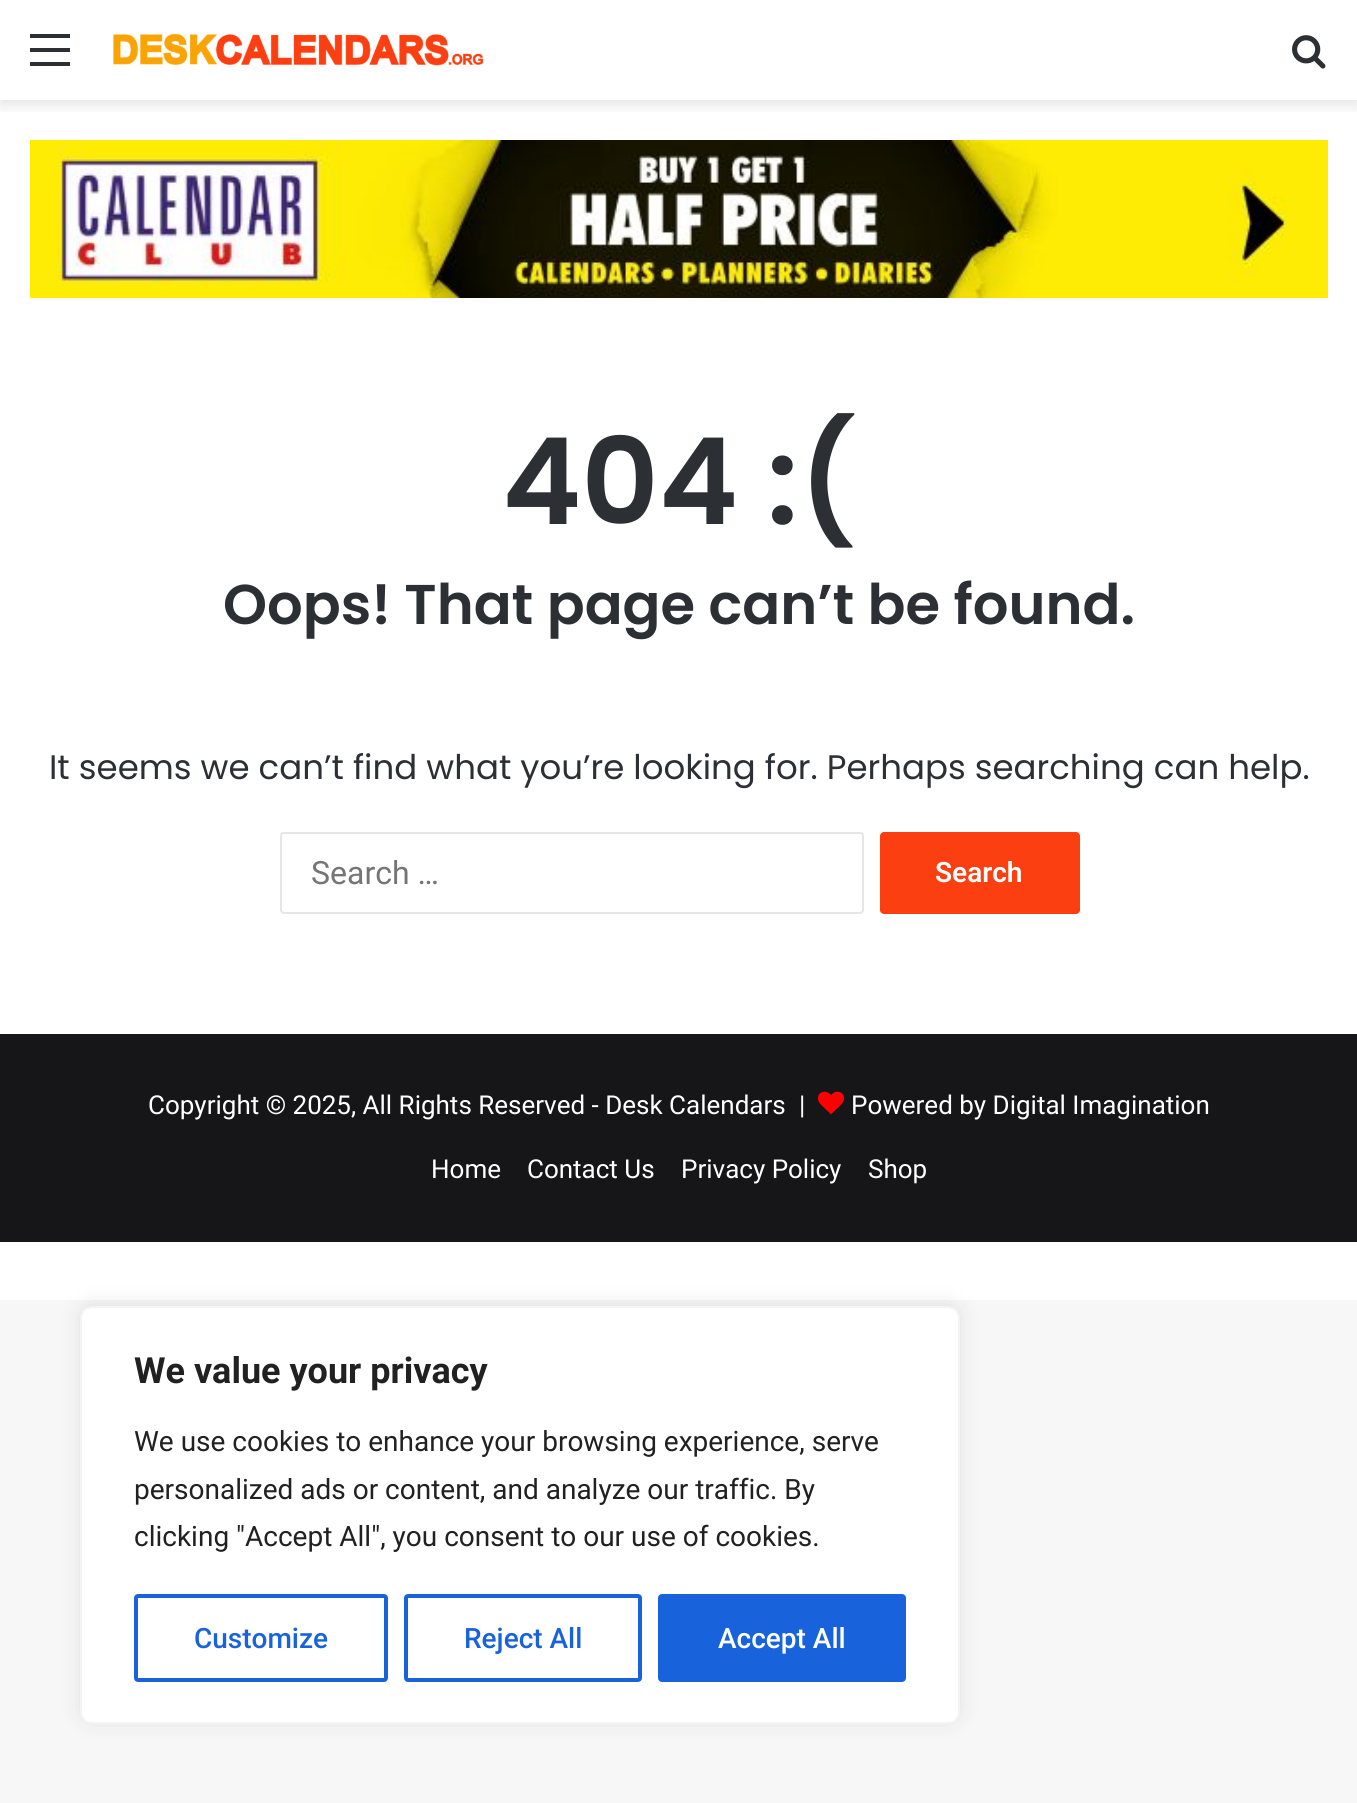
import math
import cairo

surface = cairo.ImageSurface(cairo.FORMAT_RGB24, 1357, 1803)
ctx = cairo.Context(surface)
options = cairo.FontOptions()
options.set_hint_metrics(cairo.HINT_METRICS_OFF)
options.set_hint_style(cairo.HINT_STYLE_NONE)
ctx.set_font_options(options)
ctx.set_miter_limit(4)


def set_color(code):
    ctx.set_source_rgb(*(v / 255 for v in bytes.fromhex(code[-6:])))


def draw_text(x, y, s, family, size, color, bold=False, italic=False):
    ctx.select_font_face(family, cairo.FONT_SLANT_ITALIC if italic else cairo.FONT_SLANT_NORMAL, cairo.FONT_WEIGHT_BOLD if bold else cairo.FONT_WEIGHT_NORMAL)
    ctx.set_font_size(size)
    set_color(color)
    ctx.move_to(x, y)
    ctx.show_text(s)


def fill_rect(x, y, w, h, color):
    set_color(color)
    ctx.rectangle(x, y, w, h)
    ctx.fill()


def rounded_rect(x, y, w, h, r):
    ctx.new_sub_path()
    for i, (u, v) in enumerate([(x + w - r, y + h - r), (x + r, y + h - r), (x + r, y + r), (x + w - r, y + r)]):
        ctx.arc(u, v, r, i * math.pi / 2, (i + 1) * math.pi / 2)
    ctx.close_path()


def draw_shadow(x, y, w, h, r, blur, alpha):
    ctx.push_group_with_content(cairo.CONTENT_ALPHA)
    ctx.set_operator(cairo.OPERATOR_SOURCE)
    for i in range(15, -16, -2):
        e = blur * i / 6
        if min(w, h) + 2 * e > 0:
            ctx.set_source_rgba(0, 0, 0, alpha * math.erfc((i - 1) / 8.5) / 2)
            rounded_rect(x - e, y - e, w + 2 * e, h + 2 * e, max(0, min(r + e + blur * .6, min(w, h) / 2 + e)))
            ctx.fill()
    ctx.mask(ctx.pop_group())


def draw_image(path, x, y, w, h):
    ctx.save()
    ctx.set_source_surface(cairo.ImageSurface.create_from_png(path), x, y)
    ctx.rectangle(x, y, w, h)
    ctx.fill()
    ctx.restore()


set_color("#f7f7f7")
ctx.paint()
fill_rect(0, 0, 1357, 1300, "#ffffff")
ctx.save()
ctx.rectangle(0, 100, 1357, 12)
ctx.clip()
set_color("#000000")
draw_shadow(0, 6, 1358, 100, 0, 7, 0.1)
ctx.restore()
fill_rect(30, 48, 40, 4, "#2c2f34")
fill_rect(30, 34, 40, 4, "#2c2f34")
fill_rect(30, 62, 40, 4, "#2c2f34")
draw_image("assets/img1.png", 113, 33, 371, 33)
draw_image("assets/img2.png", 1292, 35, 34, 34)
draw_image("assets/img3.png", 30, 140, 1298, 158)
draw_text(502, 524, "404 :(", "Poppins SemiBold", 120, "#2c2f34")
draw_text(223, 624, "Oops! That page can’t be found.", "Poppins SemiBold", 56, "#2c2f34")
draw_text(49, 779, "It seems we can’t find what you’re looking for. Perhaps searching can help.", "Poppins", 34, "#2c2f34")
rounded_rect(281, 833, 582, 80, 3)
set_color("#e6e6e6")
ctx.stroke()
draw_text(311, 884, "Search …", "Roboto", 32, "#757575")
set_color("#fb3f11")
rounded_rect(880, 832, 200, 82, 4)
ctx.fill()
draw_text(935, 882, "Search", "Roboto SemiBold", 28, "#ffffff")
fill_rect(0, 1034, 1357, 208, "#161619")
draw_text(148, 1114, "Copyright © 2025, All Rights Reserved - Desk Calendars", "Roboto", 26, "#ffffff")
draw_text(799, 1114, "|", "Roboto", 26, "#ffffff")
draw_image("assets/img4.png", 818, 1091, 26, 23)
draw_text(851, 1114, "Powered by Digital Imagination", "Roboto", 26, "#ffffff")
draw_text(431, 1178, "Home", "Roboto", 26, "#ffffff")
draw_text(527, 1178, "Contact Us", "Roboto", 26, "#ffffff")
draw_text(681, 1178, "Privacy Policy", "Roboto", 26, "#ffffff")
draw_text(868, 1178, "Shop", "Roboto", 26, "#ffffff")
set_color("#acabab")
draw_shadow(80, 1304, 880, 418, 12, 10, 0.3)
set_color("#ffffff")
rounded_rect(81, 1307, 878, 416, 11)
ctx.fill_preserve()
set_color("#f4f4f4")
ctx.stroke()
draw_text(134, 1383, "We value your privacy", "Roboto", 36, "#212121", bold=True)
draw_text(134, 1451, "We use cookies to enhance your browsing experience, serve", "Roboto", 28, "#212121")
draw_text(134, 1499, "personalized ads or content, and analyze our traffic. By", "Roboto", 28, "#212121")
draw_text(134, 1546, "clicking \"Accept All\", you consent to our use of cookies.", "Roboto", 28, "#212121")
rounded_rect(136, 1596, 250, 84, 2)
set_color("#1863dc")
ctx.set_line_width(4)
ctx.stroke()
draw_text(194, 1648, "Customize", "Roboto Medium", 28, "#1863dc")
rounded_rect(406, 1596, 234, 84, 2)
ctx.stroke()
draw_text(464, 1648, "Reject All", "Roboto Medium", 28, "#1863dc")
rounded_rect(660, 1596, 244, 84, 2)
ctx.fill_preserve()
ctx.stroke()
draw_text(718, 1648, "Accept All", "Roboto Medium", 28, "#ffffff")
surface.write_to_png("output.png")
